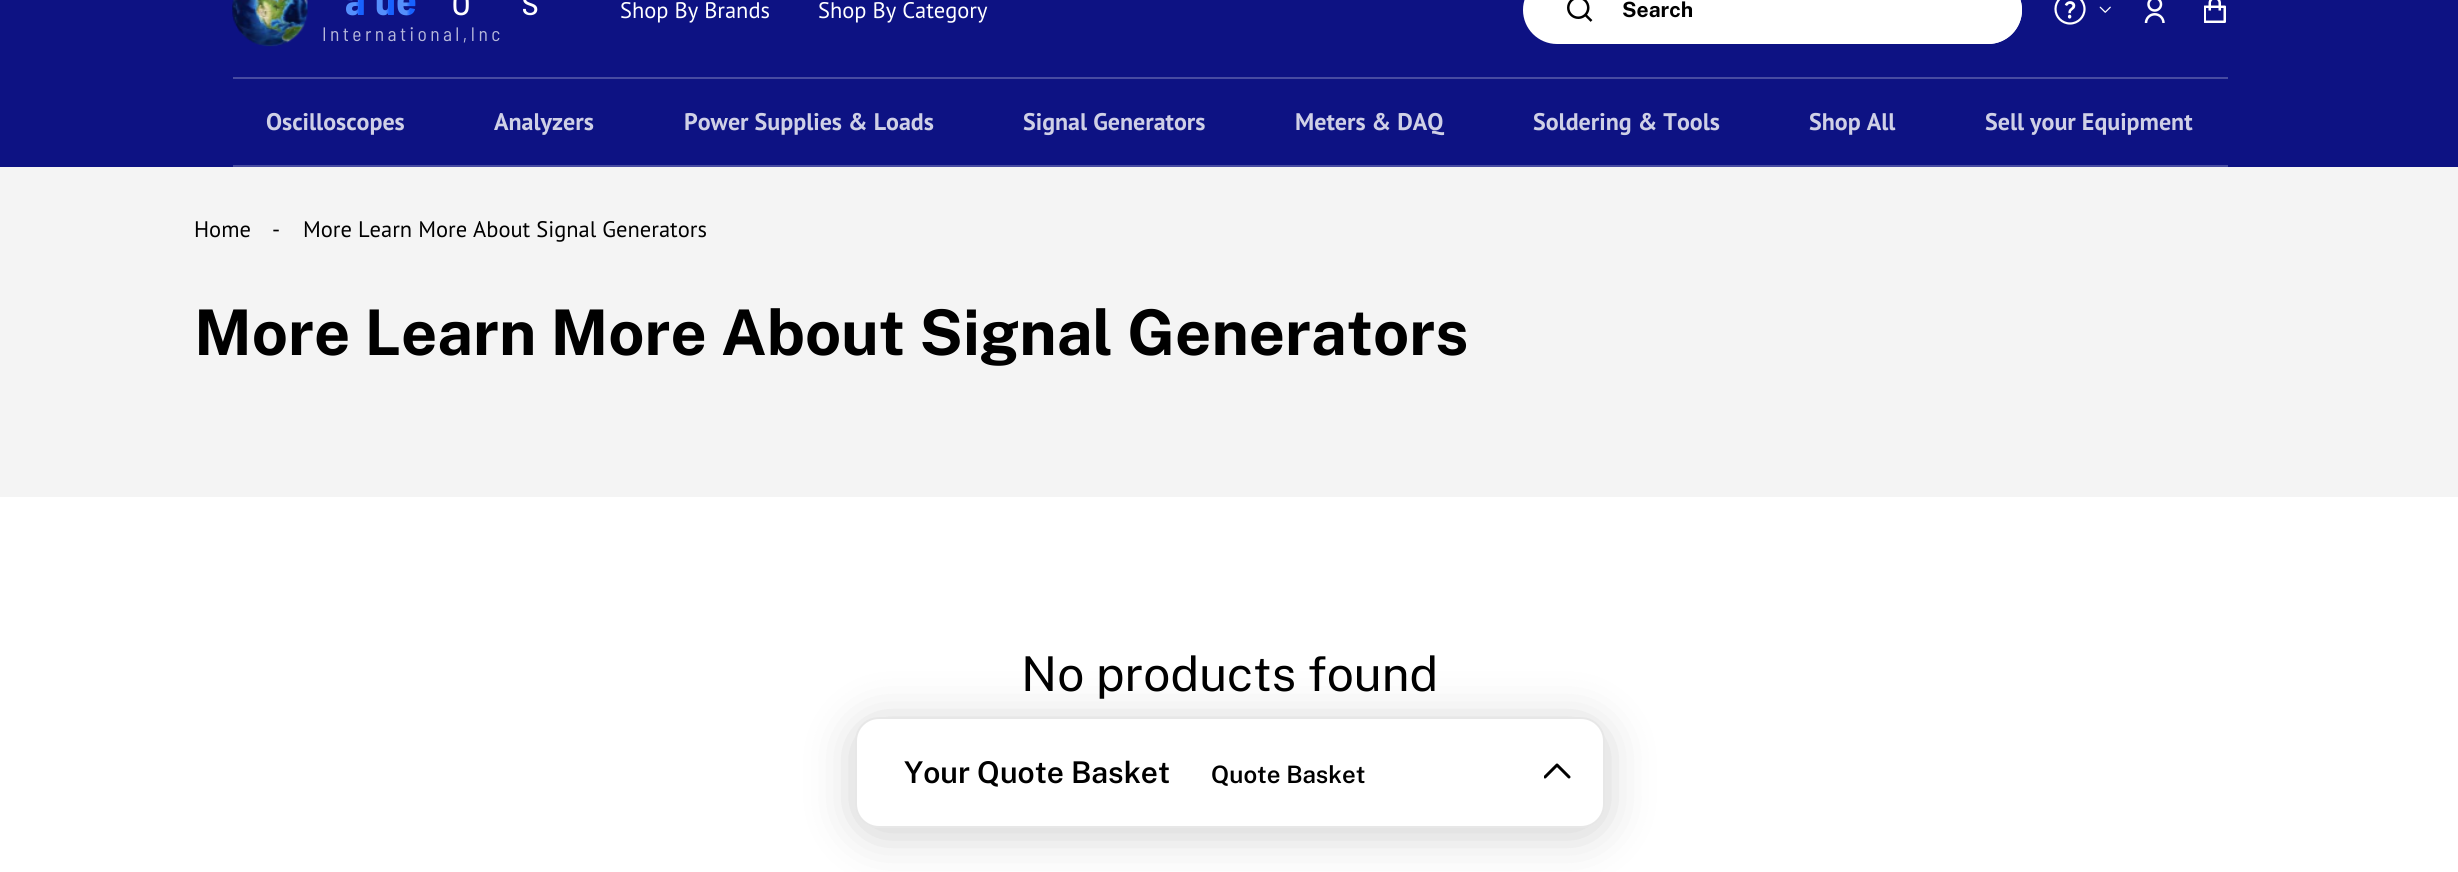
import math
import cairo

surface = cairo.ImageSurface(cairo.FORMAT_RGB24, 2458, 872)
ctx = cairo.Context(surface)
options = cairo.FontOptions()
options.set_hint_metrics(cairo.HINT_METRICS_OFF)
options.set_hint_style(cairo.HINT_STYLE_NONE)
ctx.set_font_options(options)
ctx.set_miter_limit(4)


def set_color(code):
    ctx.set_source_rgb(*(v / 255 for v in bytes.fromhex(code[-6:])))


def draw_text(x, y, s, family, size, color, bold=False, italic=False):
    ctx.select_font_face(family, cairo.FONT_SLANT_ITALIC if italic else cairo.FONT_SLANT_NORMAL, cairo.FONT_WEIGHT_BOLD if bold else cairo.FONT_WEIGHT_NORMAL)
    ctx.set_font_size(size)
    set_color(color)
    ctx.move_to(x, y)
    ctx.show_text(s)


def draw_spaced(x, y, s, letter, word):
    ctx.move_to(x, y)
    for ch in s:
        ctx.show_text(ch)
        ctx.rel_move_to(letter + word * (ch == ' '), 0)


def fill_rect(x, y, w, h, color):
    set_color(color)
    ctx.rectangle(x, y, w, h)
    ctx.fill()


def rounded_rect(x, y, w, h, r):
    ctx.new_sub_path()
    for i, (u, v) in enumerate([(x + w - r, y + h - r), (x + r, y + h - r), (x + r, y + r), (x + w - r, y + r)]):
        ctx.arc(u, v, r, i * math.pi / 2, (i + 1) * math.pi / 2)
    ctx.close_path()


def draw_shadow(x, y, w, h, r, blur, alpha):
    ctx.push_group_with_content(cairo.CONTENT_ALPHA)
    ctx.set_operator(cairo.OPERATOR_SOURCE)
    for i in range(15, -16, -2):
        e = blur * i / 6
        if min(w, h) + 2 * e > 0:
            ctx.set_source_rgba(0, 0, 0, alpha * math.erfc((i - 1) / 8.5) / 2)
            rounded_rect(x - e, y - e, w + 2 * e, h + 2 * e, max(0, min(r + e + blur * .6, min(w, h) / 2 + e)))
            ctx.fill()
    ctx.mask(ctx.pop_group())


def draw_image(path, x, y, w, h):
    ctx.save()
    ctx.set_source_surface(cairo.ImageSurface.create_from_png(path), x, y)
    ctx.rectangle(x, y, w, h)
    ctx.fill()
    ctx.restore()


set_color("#ffffff")
ctx.paint()
fill_rect(0, 0, 2458, 167, "#0d1283")
fill_rect(233, 77, 1995, 2, "#474ba1")
draw_image("assets/img1.png", 232, 0, 76, 47)
ctx.select_font_face("Barlow Semi Condensed", cairo.FONT_SLANT_NORMAL, cairo.FONT_WEIGHT_BOLD)
ctx.set_font_size(42)
gradient = cairo.LinearGradient(345, -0.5, 366, -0.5)
gradient.add_color_stop_rgba(0, 0.333, 0.561, 0.988, 1)
gradient.add_color_stop_rgba(0.5, 0.333, 0.561, 0.988, 1)
gradient.add_color_stop_rgba(0.68, 0.094, 0.384, 1, 1)
gradient.add_color_stop_rgba(1, 0.094, 0.384, 1, 1)
ctx.set_source(gradient)
ctx.move_to(345, 15)
ctx.show_text("a")
gradient = cairo.LinearGradient(375, -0.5, 396, -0.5)
gradient.add_color_stop_rgba(0, 0.333, 0.561, 0.988, 1)
gradient.add_color_stop_rgba(0.5, 0.333, 0.561, 0.988, 1)
gradient.add_color_stop_rgba(0.68, 0.094, 0.384, 1, 1)
gradient.add_color_stop_rgba(1, 0.094, 0.384, 1, 1)
ctx.set_source(gradient)
ctx.move_to(375, 15)
ctx.show_text("u")
gradient = cairo.LinearGradient(396, -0.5, 417, -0.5)
gradient.add_color_stop_rgba(0, 0.333, 0.561, 0.988, 1)
gradient.add_color_stop_rgba(0.5, 0.333, 0.561, 0.988, 1)
gradient.add_color_stop_rgba(0.68, 0.094, 0.384, 1, 1)
gradient.add_color_stop_rgba(1, 0.094, 0.384, 1, 1)
ctx.set_source(gradient)
ctx.move_to(396, 15)
ctx.show_text("e")
draw_text(451, 15, "o", "Barlow Semi Condensed", 42, "#ffffff")
draw_text(521, 15, "s", "Barlow Semi Condensed", 42, "#ffffff")
ctx.set_font_size(19.5)
set_color("#b6b8da")
draw_spaced(322, 41, "International,Inc", 3.4, 0)
draw_text(620, 18, "Shop By Brands", "PT Sans", 22.5, "#ffffff")
draw_text(818, 18, "Shop By Category", "PT Sans", 22.5, "#ffffff")
rounded_rect(1523, -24, 499, 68, 34)
ctx.fill()
draw_image("assets/img2.png", 1567, 0, 26, 22)
rounded_rect(1607, -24, 415, 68, 34)
ctx.fill()
draw_text(1622, 17, "Search", "Public Sans", 21, "#000000", bold=True)
draw_image("assets/img3.png", 2054, 0, 32, 25)
draw_image("assets/img4.png", 2099, 6, 12, 7)
draw_image("assets/img5.png", 2144, 0, 21, 23)
draw_image("assets/img6.png", 2204, 0, 22, 23)
fill_rect(233, 165, 1995, 2, "#474ba1")
draw_text(266, 130, "Oscilloscopes", "PT Sans", 24, "#cfd0e6", bold=True)
draw_text(494, 130, "Analyzers", "PT Sans", 24, "#cfd0e6", bold=True)
draw_text(684, 130, "Power Supplies & Loads", "PT Sans", 24, "#cfd0e6", bold=True)
draw_text(1023, 130, "Signal Generators", "PT Sans", 24, "#cfd0e6", bold=True)
draw_text(1295, 130, "Meters & DAQ", "PT Sans", 24, "#cfd0e6", bold=True)
draw_text(1533, 130, "Soldering & Tools", "PT Sans", 24, "#cfd0e6", bold=True)
draw_text(1809, 130, "Shop All", "PT Sans", 24, "#cfd0e6", bold=True)
draw_text(1985, 130, "Sell your Equipment", "PT Sans", 24, "#cfd0e6", bold=True)
fill_rect(0, 167, 2458, 330, "#f4f4f4")
draw_text(194, 237, "Home", "PT Sans", 22.5, "#000000")
draw_text(272, 237, "-", "PT Sans", 22.5, "#000000")
draw_text(303, 237, "More Learn More About Signal Generators", "PT Sans", 22.5, "#000000")
draw_text(194, 355, "More Learn More About Signal Generators", "Public Sans", 63, "#000000", bold=True)
draw_text(1021, 691, "No products found", "Public Sans", 48, "#000000")
set_color("#0f0f0f")
draw_shadow(852, 720, 756, 117, 27, 22.5, 0.18)
set_color("#ffffff")
rounded_rect(855, 717, 750, 111, 24)
ctx.fill()
rounded_rect(856, 718, 748, 109, 23)
ctx.set_source_rgba(0.059, 0.059, 0.059, 0.1)
ctx.stroke()
draw_text(904, 783, "Your Quote Basket", "Public Sans SemiBold", 30, "#000000")
draw_text(1211, 783, "Quote Basket", "Public Sans SemiBold", 24, "#000000")
draw_image("assets/img7.png", 1544, 763, 27, 16)
surface.write_to_png("output.png")
